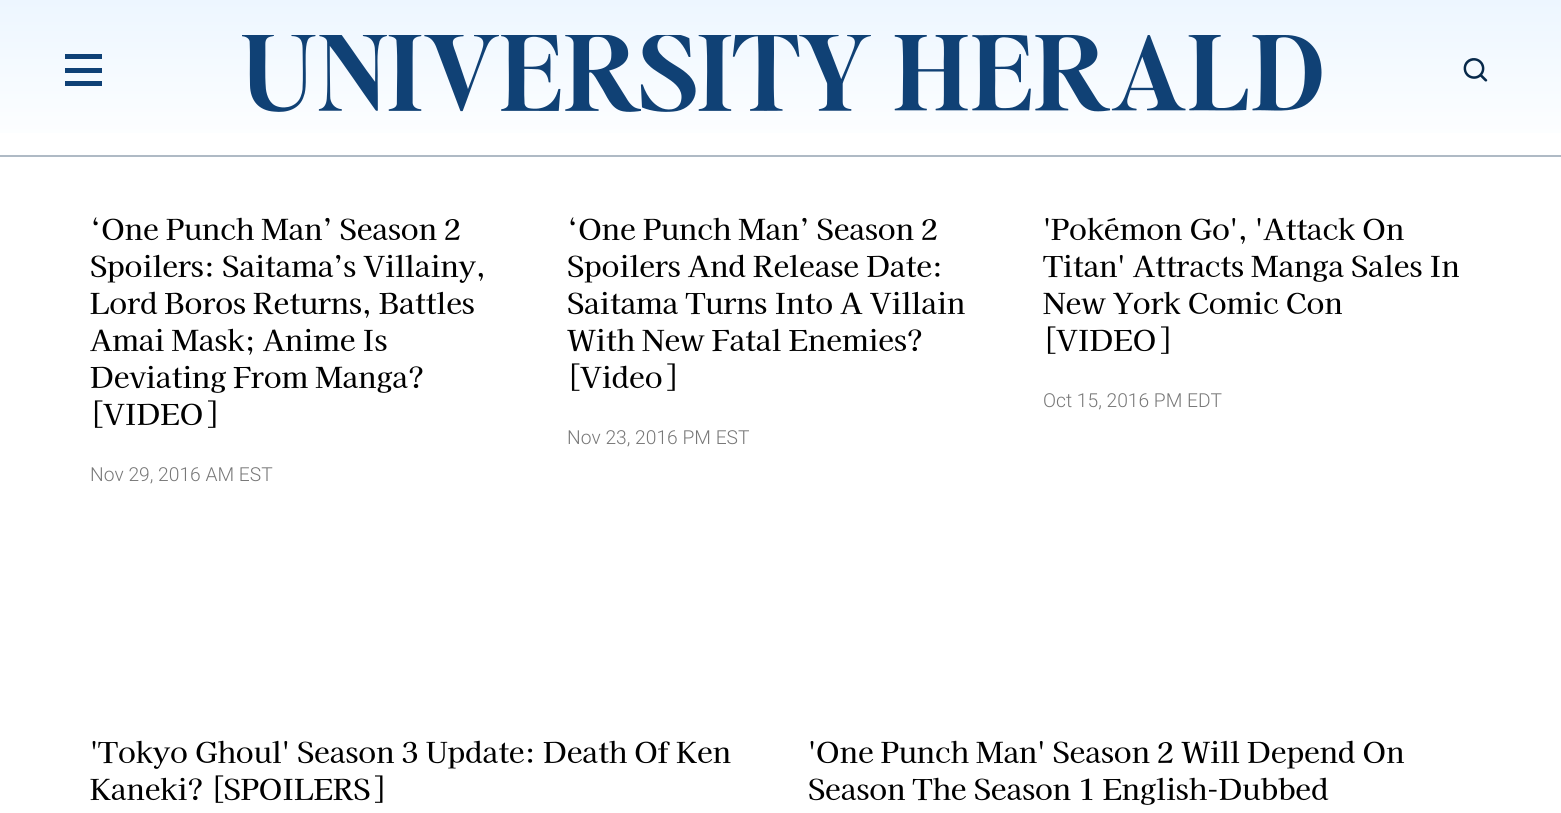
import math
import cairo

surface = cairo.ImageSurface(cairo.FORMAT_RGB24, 1561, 813)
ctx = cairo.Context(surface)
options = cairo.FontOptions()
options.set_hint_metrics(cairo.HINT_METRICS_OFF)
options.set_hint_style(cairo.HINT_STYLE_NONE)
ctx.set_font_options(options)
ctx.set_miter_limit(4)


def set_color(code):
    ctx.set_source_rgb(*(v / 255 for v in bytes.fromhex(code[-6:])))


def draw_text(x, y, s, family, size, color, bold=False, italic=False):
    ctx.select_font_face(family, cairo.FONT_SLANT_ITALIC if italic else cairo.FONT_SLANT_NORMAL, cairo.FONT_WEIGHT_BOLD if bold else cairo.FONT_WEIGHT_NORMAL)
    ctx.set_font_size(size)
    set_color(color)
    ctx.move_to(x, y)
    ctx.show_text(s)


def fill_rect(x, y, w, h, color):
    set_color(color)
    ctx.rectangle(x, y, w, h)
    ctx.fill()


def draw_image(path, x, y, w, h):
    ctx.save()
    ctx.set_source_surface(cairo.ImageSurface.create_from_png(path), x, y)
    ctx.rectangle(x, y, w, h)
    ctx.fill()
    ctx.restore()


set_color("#ffffff")
ctx.paint()
fill_rect(0, 155, 1561, 2, "#afbac5")
gradient = cairo.LinearGradient(781, 0, 781, 155)
gradient.add_color_stop_rgba(0, 0.929, 0.965, 1, 1)
gradient.add_color_stop_rgba(1, 1, 1, 1, 1)
ctx.set_source(gradient)
ctx.rectangle(0, 0, 1561, 133)
ctx.fill()
draw_image("assets/img1.png", 242, 35, 1080, 77)
fill_rect(65, 54, 37, 5, "#0f4176")
fill_rect(65, 68, 37, 5, "#0f4176")
fill_rect(65, 81, 37, 5, "#0f4176")
draw_image("assets/img2.png", 1463, 58, 25, 24)
draw_text(90, 240, "‘One Punch Man’ Season 2", "Kaisei Decol Medium", 28.8, "#000000")
draw_text(90, 277, "Spoilers: Saitama’s Villainy,", "Kaisei Decol Medium", 28.8, "#000000")
draw_text(90, 314, "Lord Boros Returns, Battles", "Kaisei Decol Medium", 28.8, "#000000")
draw_text(90, 351, "Amai Mask; Anime Is", "Kaisei Decol Medium", 28.8, "#000000")
draw_text(90, 388, "Deviating From Manga?", "Kaisei Decol Medium", 28.8, "#000000")
draw_text(90, 425, "[VIDEO]", "Kaisei Decol Medium", 28.8, "#000000")
draw_text(90, 481, "Nov 29, 2016 AM EST", "Roboto Light", 19.25, "#777777")
draw_text(567, 240, "‘One Punch Man’ Season 2", "Kaisei Decol Medium", 28.8, "#000000")
draw_text(567, 277, "Spoilers And Release Date:", "Kaisei Decol Medium", 28.8, "#000000")
draw_text(567, 314, "Saitama Turns Into A Villain", "Kaisei Decol Medium", 28.8, "#000000")
draw_text(567, 351, "With New Fatal Enemies?", "Kaisei Decol Medium", 28.8, "#000000")
draw_text(567, 388, "[Video]", "Kaisei Decol Medium", 28.8, "#000000")
draw_text(567, 444, "Nov 23, 2016 PM EST", "Roboto Light", 19.25, "#777777")
draw_text(1043, 240, "'Pokémon Go', 'Attack On", "Kaisei Decol Medium", 28.8, "#000000")
draw_text(1043, 277, "Titan' Attracts Manga Sales In", "Kaisei Decol Medium", 28.8, "#000000")
draw_text(1043, 314, "New York Comic Con", "Kaisei Decol Medium", 28.8, "#000000")
draw_text(1043, 351, "[VIDEO]", "Kaisei Decol Medium", 28.8, "#000000")
draw_text(1043, 407, "Oct 15, 2016 PM EDT", "Roboto Light", 19.25, "#777777")
draw_text(90, 763, "'Tokyo Ghoul' Season 3 Update: Death Of Ken", "Kaisei Decol Medium", 28.8, "#000000")
draw_text(90, 800, "Kaneki? [SPOILERS]", "Kaisei Decol Medium", 28.8, "#000000")
draw_text(808, 763, "'One Punch Man' Season 2 Will Depend On", "Kaisei Decol Medium", 28.8, "#000000")
draw_text(808, 800, "Season The Season 1 English-Dubbed", "Kaisei Decol Medium", 28.8, "#000000")
surface.write_to_png("output.png")
